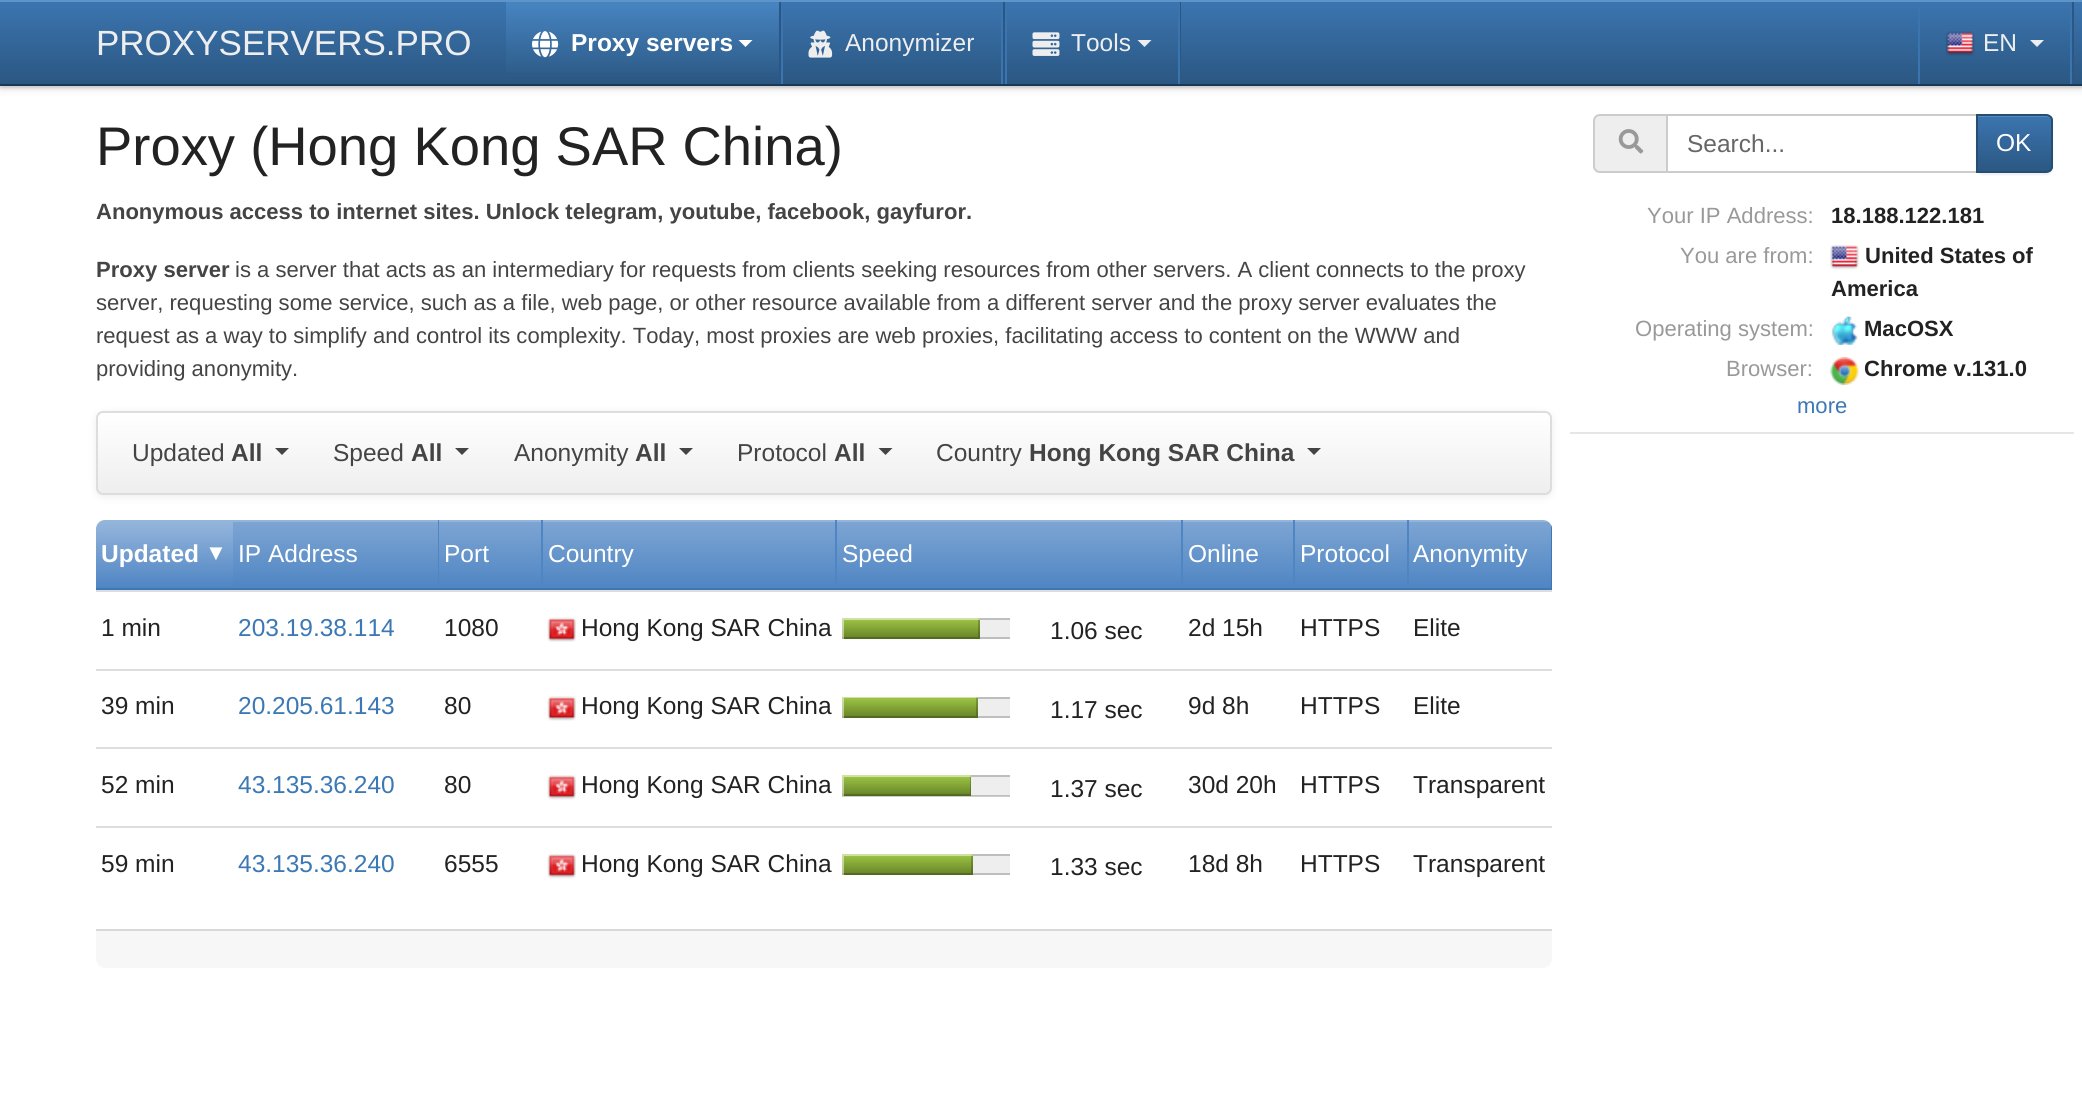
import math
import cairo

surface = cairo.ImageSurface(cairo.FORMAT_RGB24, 2082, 1103)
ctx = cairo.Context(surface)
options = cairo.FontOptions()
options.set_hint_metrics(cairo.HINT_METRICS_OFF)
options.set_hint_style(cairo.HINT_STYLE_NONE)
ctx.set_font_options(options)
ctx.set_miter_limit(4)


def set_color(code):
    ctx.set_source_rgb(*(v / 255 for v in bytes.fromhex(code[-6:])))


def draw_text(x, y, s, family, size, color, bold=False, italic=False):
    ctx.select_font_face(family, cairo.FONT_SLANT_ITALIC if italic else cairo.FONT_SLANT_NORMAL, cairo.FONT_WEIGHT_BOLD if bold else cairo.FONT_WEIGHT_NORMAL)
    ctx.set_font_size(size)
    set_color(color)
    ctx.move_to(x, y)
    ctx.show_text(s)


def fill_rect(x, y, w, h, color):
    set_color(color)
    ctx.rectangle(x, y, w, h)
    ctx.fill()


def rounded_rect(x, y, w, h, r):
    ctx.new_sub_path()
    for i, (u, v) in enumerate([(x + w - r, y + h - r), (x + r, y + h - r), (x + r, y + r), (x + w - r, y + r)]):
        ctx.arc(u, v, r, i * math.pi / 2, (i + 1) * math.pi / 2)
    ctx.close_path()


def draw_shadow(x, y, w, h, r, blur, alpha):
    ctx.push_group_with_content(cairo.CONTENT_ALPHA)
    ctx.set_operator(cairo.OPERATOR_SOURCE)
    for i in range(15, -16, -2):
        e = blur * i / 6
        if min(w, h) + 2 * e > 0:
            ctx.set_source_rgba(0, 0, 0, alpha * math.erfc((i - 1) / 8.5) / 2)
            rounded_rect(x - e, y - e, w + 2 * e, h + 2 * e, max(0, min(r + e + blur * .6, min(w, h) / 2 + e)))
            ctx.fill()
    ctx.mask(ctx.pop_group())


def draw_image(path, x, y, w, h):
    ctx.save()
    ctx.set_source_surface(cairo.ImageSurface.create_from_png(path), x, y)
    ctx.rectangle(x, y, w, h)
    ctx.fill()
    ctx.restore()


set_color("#ffffff")
ctx.paint()
fill_rect(842, 796, 168, 1, "#cccccc")
set_color("#000000")
draw_shadow(0, 7, 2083, 86, 0, 3.5, 0.04)
draw_shadow(0, 4, 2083, 85, 0, 2, 0.08)
draw_shadow(0, 2, 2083, 86, 0, 1, 0.1)
gradient = cairo.LinearGradient(1041, 1.7, 1041, 84)
gradient.add_color_stop_rgba(0, 0.231, 0.459, 0.69, 1)
gradient.add_color_stop_rgba(1, 0.169, 0.341, 0.51, 1)
ctx.set_source(gradient)
ctx.rectangle(0, 2, 2082, 82)
ctx.fill()
fill_rect(0, 0, 2082, 2, "#5e94c9")
fill_rect(0, 84, 2082, 2, "#1c3854")
draw_text(96, 55, "PROXYSERVERS.PRO", "Liberation Sans", 35, "#eeeeee")
fill_rect(779, 2, 402, 78, "#2b5782")
gradient = cairo.LinearGradient(642, 1.7, 642, 84)
gradient.add_color_stop_rgba(0, 0.278, 0.522, 0.761, 1)
gradient.add_color_stop_rgba(1, 0.169, 0.341, 0.51, 1)
ctx.set_source(gradient)
ctx.rectangle(506, 2, 273, 71)
ctx.fill()
draw_image("assets/img1.png", 532, 31, 27, 27)
draw_text(571, 51, "Proxy servers", "Liberation Sans", 24.5, "#ffffff", bold=True)
ctx.new_path()
ctx.move_to(738.5, 40)
ctx.line_to(752.5, 40)
ctx.line_to(745.5, 47)
ctx.close_path()
ctx.fill()
gradient = cairo.LinearGradient(892, 1.7, 892, 84)
gradient.add_color_stop_rgba(0, 0.231, 0.459, 0.69, 1)
gradient.add_color_stop_rgba(1, 0.169, 0.341, 0.51, 1)
ctx.set_source(gradient)
ctx.rectangle(783, 2, 218, 78)
ctx.fill()
fill_rect(1001, 2, 2, 82, "#3b75b0")
fill_rect(781, 2, 2, 82, "#3b75b0")
draw_image("assets/img2.png", 808, 30, 25, 28)
draw_text(845, 51, "Anonymizer", "Liberation Sans", 24.5, "#eeeeee")
gradient = cairo.LinearGradient(1092, 1.7, 1092, 84)
gradient.add_color_stop_rgba(0, 0.231, 0.459, 0.69, 1)
gradient.add_color_stop_rgba(1, 0.169, 0.341, 0.51, 1)
ctx.set_source(gradient)
ctx.rectangle(1007, 2, 171, 78)
ctx.fill()
fill_rect(1178, 2, 2, 82, "#3b75b0")
fill_rect(1005, 2, 2, 82, "#3b75b0")
draw_image("assets/img3.png", 1032, 32, 28, 24)
draw_text(1071, 51, "Tools", "Liberation Sans", 24.5, "#eeeeee")
ctx.new_path()
ctx.move_to(1137.5, 40)
ctx.line_to(1151.5, 40)
ctx.line_to(1144.5, 47)
ctx.close_path()
ctx.fill()
fill_rect(2072, 2, 2, 82, "#2b5782")
fill_rect(2070, 2, 2, 82, "#3b75b0")
fill_rect(1918, 2, 2, 82, "#3b75b0")
draw_image("assets/img4.png", 1946, 31, 29, 25)
draw_text(1983, 51, "EN", "Liberation Sans", 24.5, "#eeeeee")
ctx.new_path()
ctx.move_to(2030, 40)
ctx.line_to(2044, 40)
ctx.line_to(2037, 47)
ctx.close_path()
ctx.fill()
draw_text(96, 165, "Proxy (Hong Kong SAR China)", "Liberation Sans", 54.4, "#222222")
draw_text(96, 219, "Anonymous access to internet sites. Unlock telegram, youtube, facebook, gayfuror.", "Liberation Sans", 22.05, "#444444", bold=True)
draw_text(96, 277, "Proxy server", "Liberation Sans", 22.05, "#444444", bold=True)
draw_text(235, 277, "is a server that acts as an intermediary for requests from clients seeking resources from other servers. A client connects to the proxy", "Liberation Sans", 22.05, "#444444")
draw_text(96, 310, "server, requesting some service, such as a file, web page, or other resource available from a different server and the proxy server evaluates the", "Liberation Sans", 22.05, "#444444")
draw_text(96, 343, "request as a way to simplify and control its complexity. Today, most proxies are web proxies, facilitating access to content on the WWW and", "Liberation Sans", 22.05, "#444444")
draw_text(96, 376, "providing anonymity.", "Liberation Sans", 22.05, "#444444")
set_color("#000000")
draw_shadow(96, 413, 1456, 84, 7, 4.5, 0.07)
ctx.save()
rounded_rect(96, 411, 1456, 84, 7)
ctx.clip()
gradient = cairo.LinearGradient(824, 413, 824, 494)
gradient.add_color_stop_rgba(0, 1, 1, 1, 1)
gradient.add_color_stop_rgba(1, 0.933, 0.933, 0.933, 1)
ctx.set_source(gradient)
ctx.rectangle(96, 413, 1456, 81)
ctx.fill()
ctx.restore()
rounded_rect(97, 412, 1454, 82, 6)
set_color("#dddddd")
ctx.stroke()
draw_text(132, 461, "Updated", "Liberation Sans", 24.5, "#444444")
draw_text(231, 461, "All", "Liberation Sans", 24.5, "#444444", bold=True)
ctx.new_path()
ctx.move_to(275, 448)
ctx.line_to(289, 448)
ctx.line_to(282, 455)
ctx.close_path()
ctx.fill()
draw_text(333, 461, "Speed", "Liberation Sans", 24.5, "#444444")
draw_text(411, 461, "All", "Liberation Sans", 24.5, "#444444", bold=True)
ctx.new_path()
ctx.move_to(455, 448)
ctx.line_to(469, 448)
ctx.line_to(462, 455)
ctx.close_path()
ctx.fill()
draw_text(514, 461, "Anonymity", "Liberation Sans", 24.5, "#444444")
draw_text(635, 461, "All", "Liberation Sans", 24.5, "#444444", bold=True)
ctx.new_path()
ctx.move_to(679, 448)
ctx.line_to(693, 448)
ctx.line_to(686, 455)
ctx.close_path()
ctx.fill()
draw_text(737, 461, "Protocol", "Liberation Sans", 24.5, "#444444")
draw_text(834, 461, "All", "Liberation Sans", 24.5, "#444444", bold=True)
ctx.new_path()
ctx.move_to(878.5, 448)
ctx.line_to(892.5, 448)
ctx.line_to(885.5, 455)
ctx.close_path()
ctx.fill()
draw_text(936, 461, "Country", "Liberation Sans", 24.5, "#444444")
draw_text(1029, 461, "Hong Kong SAR China", "Liberation Sans", 24.5, "#444444", bold=True)
ctx.new_path()
ctx.move_to(1307, 448)
ctx.line_to(1321, 448)
ctx.line_to(1314, 455)
ctx.close_path()
ctx.fill()
ctx.save()
rounded_rect(96, 520, 1456, 448, 9)
ctx.clip()
gradient = cairo.LinearGradient(165, 522, 165, 588)
gradient.add_color_stop_rgba(0, 0.58, 0.71, 0.859, 1)
gradient.add_color_stop_rgba(1, 0.31, 0.522, 0.765, 1)
ctx.set_source(gradient)
ctx.rectangle(96, 522, 137, 66)
ctx.fill()
fill_rect(96, 520, 137, 2, "#94b5db")
ctx.restore()
draw_text(101, 562, "Updated", "Liberation Sans", 24.5, "#ffffff", bold=True)
draw_text(205, 560, "▼", "Liberation Sans", 22.05, "#ffffff", bold=True)
gradient = cairo.LinearGradient(335, 522, 335, 588)
gradient.add_color_stop_rgba(0, 0.49, 0.647, 0.827, 1)
gradient.add_color_stop_rgba(1, 0.31, 0.522, 0.765, 1)
ctx.set_source(gradient)
ctx.rectangle(233, 522, 205, 66)
ctx.fill()
fill_rect(233, 520, 1176, 2, "#94b5db")
fill_rect(438, 520, 1, 70, "#4f85c3")
fill_rect(96, 588, 343, 2, "#3e76b6")
draw_text(238, 562, "IP Address", "Liberation Sans", 24.5, "#ffffff")
gradient = cairo.LinearGradient(490, 522, 490, 588)
gradient.add_color_stop_rgba(0, 0.49, 0.647, 0.827, 1)
gradient.add_color_stop_rgba(1, 0.31, 0.522, 0.765, 1)
ctx.set_source(gradient)
ctx.rectangle(439, 522, 102, 66)
ctx.fill()
fill_rect(541, 520, 2, 70, "#4f85c3")
fill_rect(439, 588, 104, 2, "#3e76b6")
draw_text(444, 562, "Port", "Liberation Sans", 24.5, "#ffffff")
gradient = cairo.LinearGradient(689, 522, 689, 588)
gradient.add_color_stop_rgba(0, 0.49, 0.647, 0.827, 1)
gradient.add_color_stop_rgba(1, 0.31, 0.522, 0.765, 1)
ctx.set_source(gradient)
ctx.rectangle(543, 522, 292, 66)
ctx.fill()
fill_rect(835, 520, 2, 70, "#4f85c3")
fill_rect(543, 588, 294, 2, "#3e76b6")
draw_text(548, 562, "Country", "Liberation Sans", 24.5, "#ffffff")
gradient = cairo.LinearGradient(1009, 522, 1009, 588)
gradient.add_color_stop_rgba(0, 0.49, 0.647, 0.827, 1)
gradient.add_color_stop_rgba(1, 0.31, 0.522, 0.765, 1)
ctx.set_source(gradient)
ctx.rectangle(837, 522, 344, 66)
ctx.fill()
fill_rect(1181, 520, 2, 70, "#4f85c3")
fill_rect(837, 588, 346, 2, "#3e76b6")
draw_text(842, 562, "Speed", "Liberation Sans", 24.5, "#ffffff")
gradient = cairo.LinearGradient(1238, 522, 1238, 588)
gradient.add_color_stop_rgba(0, 0.49, 0.647, 0.827, 1)
gradient.add_color_stop_rgba(1, 0.31, 0.522, 0.765, 1)
ctx.set_source(gradient)
ctx.rectangle(1183, 522, 110, 66)
ctx.fill()
fill_rect(1293, 520, 2, 70, "#4f85c3")
fill_rect(1183, 588, 112, 2, "#3e76b6")
draw_text(1188, 562, "Online", "Liberation Sans", 24.5, "#ffffff")
gradient = cairo.LinearGradient(1351, 522, 1351, 588)
gradient.add_color_stop_rgba(0, 0.49, 0.647, 0.827, 1)
gradient.add_color_stop_rgba(1, 0.31, 0.522, 0.765, 1)
ctx.set_source(gradient)
ctx.rectangle(1295, 522, 112, 66)
ctx.fill()
fill_rect(1407, 520, 2, 70, "#4f85c3")
fill_rect(1295, 588, 114, 2, "#3e76b6")
draw_text(1300, 562, "Protocol", "Liberation Sans", 24.5, "#ffffff")
ctx.save()
rounded_rect(96, 520, 1456, 448, 9)
ctx.clip()
gradient = cairo.LinearGradient(1480, 522, 1480, 588)
gradient.add_color_stop_rgba(0, 0.49, 0.647, 0.827, 1)
gradient.add_color_stop_rgba(1, 0.31, 0.522, 0.765, 1)
ctx.set_source(gradient)
ctx.rectangle(1409, 522, 143, 66)
ctx.fill()
fill_rect(1409, 520, 143, 2, "#94b5db")
fill_rect(1551, 520, 1, 70, "#3e76b6")
ctx.restore()
fill_rect(1409, 588, 143, 2, "#3e76b6")
draw_text(1413, 562, "Anonymity", "Liberation Sans", 24.5, "#ffffff")
fill_rect(96, 590, 1456, 2, "#dddddd")
draw_text(101, 636, "1 min", "Liberation Sans", 24.5, "#222222")
draw_text(238, 636, "203.19.38.114", "Liberation Sans", 24.5, "#3c78b4")
draw_text(444, 636, "1080", "Liberation Sans", 24.5, "#222222")
draw_image("assets/img5.png", 547, 617, 29, 25)
draw_text(581, 636, "Hong Kong SAR China", "Liberation Sans", 24.5, "#222222")
fill_rect(980, 620, 30, 17, "#eeeeee")
fill_rect(980, 637, 30, 2, "#bebebe")
fill_rect(980, 618, 30, 2, "#bebebe")
gradient = cairo.LinearGradient(911, 618, 911, 639)
gradient.add_color_stop_rgba(0, 0.627, 0.78, 0.278, 1)
gradient.add_color_stop_rgba(1, 0.396, 0.506, 0.153, 1)
ctx.set_source(gradient)
ctx.rectangle(842, 618, 138, 21)
ctx.fill()
ctx.save()
ctx.rectangle(842, 618, 138, 21)
ctx.clip()
ctx.set_source_rgba(0, 0, 0, 0.2)
ctx.set_fill_rule(cairo.FILL_RULE_EVEN_ODD)
ctx.new_path()
ctx.move_to(1153, 520)
ctx.line_to(1153, 812)
ctx.line_to(668, 812)
ctx.line_to(668, 520)
ctx.close_path()
ctx.move_to(840, 616)
ctx.line_to(840, 637)
ctx.line_to(978, 637)
ctx.line_to(978, 616)
ctx.close_path()
ctx.fill()
ctx.set_source_rgba(1, 1, 1, 0.5)
ctx.new_path()
ctx.move_to(1153, 520)
ctx.line_to(1153, 812)
ctx.line_to(668, 812)
ctx.line_to(668, 520)
ctx.close_path()
ctx.move_to(844, 620)
ctx.line_to(844, 640)
ctx.line_to(982, 640)
ctx.line_to(982, 620)
ctx.close_path()
ctx.fill()
ctx.restore()
draw_text(1050, 639, "1.06 sec", "Liberation Sans", 24.5, "#222222")
draw_text(1188, 636, "2d 15h", "Liberation Sans", 24.5, "#222222")
draw_text(1300, 636, "HTTPS", "Liberation Sans", 24.5, "#222222")
draw_text(1413, 636, "Elite", "Liberation Sans", 24.5, "#222222")
fill_rect(96, 669, 1456, 2, "#dddddd")
draw_text(101, 714, "39 min", "Liberation Sans", 24.5, "#222222")
draw_text(238, 714, "20.205.61.143", "Liberation Sans", 24.5, "#3c78b4")
draw_text(444, 714, "80", "Liberation Sans", 24.5, "#222222")
draw_image("assets/img6.png", 547, 696, 29, 25)
draw_text(581, 714, "Hong Kong SAR China", "Liberation Sans", 24.5, "#222222")
fill_rect(978, 699, 32, 17, "#eeeeee")
fill_rect(978, 716, 32, 2, "#bebebe")
fill_rect(978, 697, 32, 2, "#bebebe")
gradient = cairo.LinearGradient(910, 697, 910, 718)
gradient.add_color_stop_rgba(0, 0.627, 0.78, 0.278, 1)
gradient.add_color_stop_rgba(1, 0.396, 0.506, 0.153, 1)
ctx.set_source(gradient)
ctx.rectangle(842, 697, 136, 21)
ctx.fill()
ctx.save()
ctx.rectangle(842, 697, 136, 21)
ctx.clip()
ctx.set_source_rgba(0, 0, 0, 0.2)
ctx.set_fill_rule(cairo.FILL_RULE_EVEN_ODD)
ctx.new_path()
ctx.move_to(668, 523)
ctx.line_to(1152, 523)
ctx.line_to(1152, 891)
ctx.line_to(668, 891)
ctx.close_path()
ctx.move_to(840, 695)
ctx.line_to(976, 695)
ctx.line_to(976, 716)
ctx.line_to(840, 716)
ctx.close_path()
ctx.fill()
ctx.set_source_rgba(1, 1, 1, 0.5)
ctx.new_path()
ctx.move_to(668, 523)
ctx.line_to(1152, 523)
ctx.line_to(1152, 891)
ctx.line_to(668, 891)
ctx.close_path()
ctx.move_to(844, 698)
ctx.line_to(980, 698)
ctx.line_to(980, 719)
ctx.line_to(844, 719)
ctx.close_path()
ctx.fill()
ctx.restore()
draw_text(1050, 718, "1.17 sec", "Liberation Sans", 24.5, "#222222")
draw_text(1188, 714, "9d 8h", "Liberation Sans", 24.5, "#222222")
draw_text(1300, 714, "HTTPS", "Liberation Sans", 24.5, "#222222")
draw_text(1413, 714, "Elite", "Liberation Sans", 24.5, "#222222")
fill_rect(96, 747, 1456, 2, "#dddddd")
draw_text(101, 793, "52 min", "Liberation Sans", 24.5, "#222222")
draw_text(238, 793, "43.135.36.240", "Liberation Sans", 24.5, "#3c78b4")
draw_text(444, 793, "80", "Liberation Sans", 24.5, "#222222")
draw_image("assets/img7.png", 547, 775, 29, 25)
draw_text(581, 793, "Hong Kong SAR China", "Liberation Sans", 24.5, "#222222")
fill_rect(971, 777, 39, 18, "#eeeeee")
fill_rect(971, 795, 39, 1, "#bebebe")
fill_rect(971, 775, 39, 2, "#bebebe")
gradient = cairo.LinearGradient(907, 775, 907, 796)
gradient.add_color_stop_rgba(0, 0.627, 0.78, 0.278, 1)
gradient.add_color_stop_rgba(1, 0.396, 0.506, 0.153, 1)
ctx.set_source(gradient)
ctx.rectangle(842, 775, 129, 21)
ctx.fill()
ctx.save()
ctx.rectangle(842, 775, 129, 21)
ctx.clip()
ctx.set_source_rgba(0, 0, 0, 0.2)
ctx.set_fill_rule(cairo.FILL_RULE_EVEN_ODD)
ctx.new_path()
ctx.move_to(668, 602)
ctx.line_to(1144, 602)
ctx.line_to(1144, 968)
ctx.line_to(668, 968)
ctx.close_path()
ctx.move_to(840, 774)
ctx.line_to(840, 794)
ctx.line_to(970, 794)
ctx.line_to(970, 774)
ctx.close_path()
ctx.fill()
ctx.set_source_rgba(1, 1, 1, 0.5)
ctx.new_path()
ctx.move_to(668, 602)
ctx.line_to(1144, 602)
ctx.line_to(1144, 968)
ctx.line_to(668, 968)
ctx.close_path()
ctx.move_to(844, 777)
ctx.line_to(844, 798)
ctx.line_to(973, 798)
ctx.line_to(973, 777)
ctx.close_path()
ctx.fill()
ctx.restore()
draw_text(1050, 797, "1.37 sec", "Liberation Sans", 24.5, "#222222")
draw_text(1188, 793, "30d 20h", "Liberation Sans", 24.5, "#222222")
draw_text(1300, 793, "HTTPS", "Liberation Sans", 24.5, "#222222")
draw_text(1413, 793, "Transparent", "Liberation Sans", 24.5, "#222222")
fill_rect(96, 826, 1456, 2, "#dddddd")
draw_text(101, 872, "59 min", "Liberation Sans", 24.5, "#222222")
draw_text(238, 872, "43.135.36.240", "Liberation Sans", 24.5, "#3c78b4")
draw_text(444, 872, "6555", "Liberation Sans", 24.5, "#222222")
draw_image("assets/img8.png", 547, 854, 29, 25)
draw_text(581, 872, "Hong Kong SAR China", "Liberation Sans", 24.5, "#222222")
fill_rect(973, 856, 37, 17, "#eeeeee")
fill_rect(973, 873, 37, 2, "#bebebe")
fill_rect(973, 854, 37, 2, "#bebebe")
gradient = cairo.LinearGradient(907, 854, 907, 875)
gradient.add_color_stop_rgba(0, 0.627, 0.78, 0.278, 1)
gradient.add_color_stop_rgba(1, 0.396, 0.506, 0.153, 1)
ctx.set_source(gradient)
ctx.rectangle(842, 854, 131, 21)
ctx.fill()
ctx.save()
ctx.rectangle(842, 854, 131, 21)
ctx.clip()
ctx.set_source_rgba(0, 0, 0, 0.2)
ctx.set_fill_rule(cairo.FILL_RULE_EVEN_ODD)
ctx.new_path()
ctx.move_to(668, 681)
ctx.line_to(1146, 681)
ctx.line_to(1146, 968)
ctx.line_to(668, 968)
ctx.close_path()
ctx.move_to(840, 852)
ctx.line_to(840, 873)
ctx.line_to(971, 873)
ctx.line_to(971, 852)
ctx.close_path()
ctx.fill()
ctx.set_source_rgba(1, 1, 1, 0.5)
ctx.new_path()
ctx.move_to(668, 681)
ctx.line_to(1146, 681)
ctx.line_to(1146, 968)
ctx.line_to(668, 968)
ctx.close_path()
ctx.move_to(844, 856)
ctx.line_to(844, 877)
ctx.line_to(975, 877)
ctx.line_to(975, 856)
ctx.close_path()
ctx.fill()
ctx.restore()
draw_text(1050, 875, "1.33 sec", "Liberation Sans", 24.5, "#222222")
draw_text(1188, 872, "18d 8h", "Liberation Sans", 24.5, "#222222")
draw_text(1300, 872, "HTTPS", "Liberation Sans", 24.5, "#222222")
draw_text(1413, 872, "Transparent", "Liberation Sans", 24.5, "#222222")
set_color("#f7f7f7")
ctx.new_path()
ctx.move_to(96, 929)
ctx.line_to(1552, 929)
ctx.line_to(1552, 959)
ctx.curve_to(1552, 964, 1548, 968, 1543, 968)
ctx.line_to(105, 968)
ctx.curve_to(100, 968, 96, 964, 96, 959)
ctx.close_path()
ctx.fill()
fill_rect(96, 929, 1456, 2, "#d8d8d8")
set_color("#eeeeee")
ctx.new_path()
ctx.move_to(1600, 115)
ctx.line_to(1667, 115)
ctx.line_to(1667, 172)
ctx.line_to(1600, 172)
ctx.curve_to(1596.5, 172, 1594, 169.5, 1594, 166)
ctx.line_to(1594, 121)
ctx.curve_to(1594, 117.5, 1596.5, 115, 1600, 115)
ctx.close_path()
ctx.fill_preserve()
set_color("#cccccc")
ctx.stroke()
draw_image("assets/img9.png", 1618, 129, 26, 25)
ctx.rectangle(1667, 115, 310, 57)
ctx.stroke()
draw_text(1687, 152, "Search...", "Liberation Sans", 24.5, "#666666")
set_color("#000000")
draw_shadow(1976, 116, 77, 59, 7, 1, 0.07)
ctx.save()
ctx.new_path()
ctx.move_to(1976, 114)
ctx.line_to(2046, 114)
ctx.curve_to(2050, 114, 2053, 117, 2053, 121)
ctx.line_to(2053, 166)
ctx.curve_to(2053, 170, 2050, 173, 2046, 173)
ctx.line_to(1976, 173)
ctx.close_path()
ctx.clip()
gradient = cairo.LinearGradient(2014, 116, 2014, 172)
gradient.add_color_stop_rgba(0, 0.231, 0.459, 0.69, 1)
gradient.add_color_stop_rgba(1, 0.169, 0.341, 0.51, 1)
ctx.set_source(gradient)
ctx.rectangle(1978, 116, 75, 56)
ctx.fill()
ctx.restore()
set_color("#588abc")
ctx.new_path()
ctx.move_to(1978, 117)
ctx.line_to(2047, 117)
ctx.curve_to(2049, 117, 2051, 119, 2051, 122)
ctx.line_to(2051, 120)
ctx.curve_to(2051, 118, 2049, 116, 2047, 116)
ctx.line_to(1978, 116)
ctx.close_path()
ctx.fill()
ctx.new_path()
ctx.move_to(1977, 115)
ctx.line_to(2046, 115)
ctx.curve_to(2049.5, 115, 2052, 117.5, 2052, 121)
ctx.line_to(2052, 166)
ctx.curve_to(2052, 169.5, 2049.5, 172, 2046, 172)
ctx.line_to(1977, 172)
ctx.close_path()
set_color("#264d73")
ctx.stroke()
draw_text(1996, 151, "OK", "Liberation Sans", 24.5, "#ffffff")
draw_text(1647, 223, "Your IP Address:", "Liberation Sans", 22.05, "#999999")
draw_text(1831, 223, "18.188.122.181", "Liberation Sans", 22.05, "#222222", bold=True)
draw_text(1680, 263, "You are from:", "Liberation Sans", 22.05, "#999999")
draw_image("assets/img10.png", 1830, 245, 29, 25)
draw_text(1865, 263, "United States of", "Liberation Sans", 22.05, "#222222", bold=True)
draw_text(1831, 296, "America", "Liberation Sans", 22.05, "#222222", bold=True)
draw_text(1635, 336, "Operating system:", "Liberation Sans", 22.05, "#999999")
draw_image("assets/img11.png", 1831, 316, 27, 29)
draw_text(1864, 336, "MacOSX", "Liberation Sans", 22.05, "#222222", bold=True)
draw_text(1726, 376, "Browser:", "Liberation Sans", 22.05, "#999999")
draw_image("assets/img12.png", 1830, 357, 29, 28)
draw_text(1864, 376, "Chrome v.131.0", "Liberation Sans", 22.05, "#222222", bold=True)
draw_text(1797, 413, "more", "Liberation Sans", 22.05, "#3c78b4")
fill_rect(1570, 432, 504, 2, "#e6e6e6")
surface.write_to_png("output.png")
